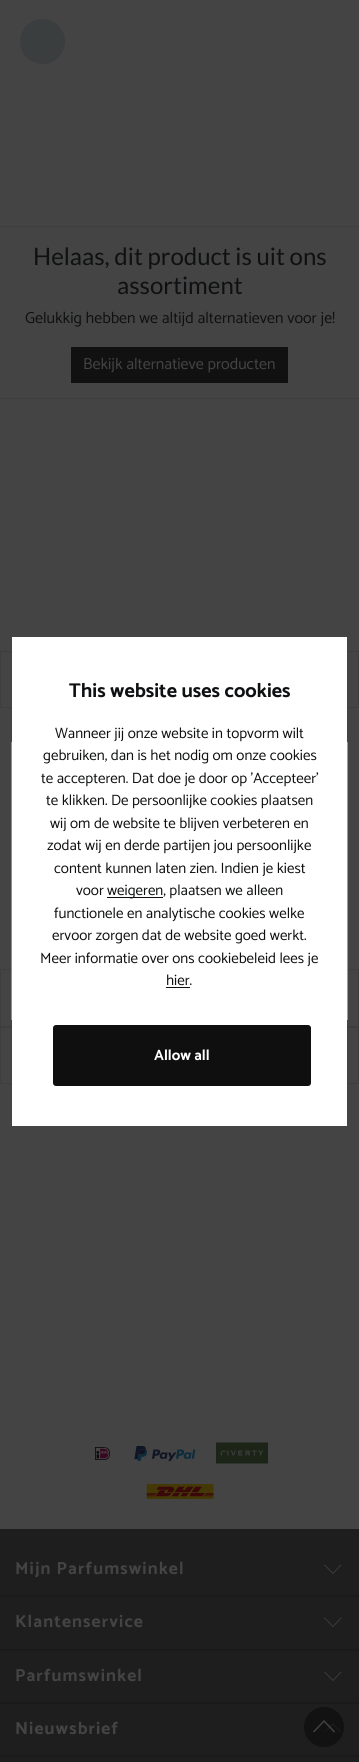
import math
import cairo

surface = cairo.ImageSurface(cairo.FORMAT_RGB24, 359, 1762)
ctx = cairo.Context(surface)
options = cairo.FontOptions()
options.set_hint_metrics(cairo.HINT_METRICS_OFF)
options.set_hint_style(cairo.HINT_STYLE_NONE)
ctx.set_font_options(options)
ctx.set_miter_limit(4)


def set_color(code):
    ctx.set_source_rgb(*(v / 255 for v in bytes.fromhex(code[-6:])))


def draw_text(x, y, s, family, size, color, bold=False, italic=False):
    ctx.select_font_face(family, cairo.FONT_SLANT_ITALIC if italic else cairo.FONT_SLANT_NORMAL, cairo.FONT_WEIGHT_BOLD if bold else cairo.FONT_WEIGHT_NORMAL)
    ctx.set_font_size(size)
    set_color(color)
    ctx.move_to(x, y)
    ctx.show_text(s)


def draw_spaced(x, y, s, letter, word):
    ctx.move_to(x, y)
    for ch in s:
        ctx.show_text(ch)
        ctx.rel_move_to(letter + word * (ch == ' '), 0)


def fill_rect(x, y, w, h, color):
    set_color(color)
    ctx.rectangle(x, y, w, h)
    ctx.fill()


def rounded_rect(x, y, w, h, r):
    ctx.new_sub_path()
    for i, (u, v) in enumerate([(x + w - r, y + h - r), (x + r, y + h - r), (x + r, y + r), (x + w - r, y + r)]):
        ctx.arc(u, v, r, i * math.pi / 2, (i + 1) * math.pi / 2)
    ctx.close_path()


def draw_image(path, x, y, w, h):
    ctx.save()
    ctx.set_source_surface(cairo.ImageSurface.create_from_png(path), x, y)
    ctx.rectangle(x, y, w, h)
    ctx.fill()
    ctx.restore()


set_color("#444444")
ctx.paint()
set_color("#3b3e3e")
ctx.arc(42.5, 41.5, 22.5, 0, 2 * math.pi)
ctx.fill()
fill_rect(0, 226, 359, 1, "#3e3e3e")
fill_rect(0, 398, 359, 1, "#3e3e3e")
draw_text(33, 265, "Helaas, dit product is uit ons", "Lato", 24, "#0f1011")
draw_text(117, 294, "assortiment", "Lato", 24, "#0f1011")
draw_text(25, 323, "Gelukkig hebben we altijd alternatieven voor je!", "Catamaran", 16, "#0f1011")
fill_rect(71, 347, 217, 36, "#111111")
draw_text(83, 369, "Bekijk alternatieve producten", "Catamaran", 16, "#444444")
ctx.rectangle(0.5, 651.5, 358, 56)
set_color("#3e3e3e")
ctx.set_line_width(1)
ctx.stroke()
ctx.rectangle(0.5, 969.5, 358, 57)
ctx.stroke()
ctx.rectangle(0.5, 1027.5, 358, 56)
ctx.stroke()
fill_rect(11, 742, 337, 278, "#999999")
fill_rect(12, 637, 335, 489, "#ffffff")
draw_text(69, 697, "This website uses cookies", "Catamaran", 20, "#0f1011", bold=True)
draw_text(55, 738, "Wanneer jij onze website in topvorm wilt", "Catamaran", 15, "#0f1011")
draw_text(43, 760, "gebruiken, dan is het nodig om onze cookies", "Catamaran", 15, "#0f1011")
draw_text(41, 783, "te accepteren. Dat doe je door op 'Accepteer'", "Catamaran", 15, "#0f1011")
draw_text(46, 805, "te klikken. De persoonlijke cookies plaatsen", "Catamaran", 15, "#0f1011")
draw_text(50, 828, "wij om de website te blijven verbeteren en", "Catamaran", 15, "#0f1011")
draw_text(47, 850, "zodat wij en derde partijen jou persoonlijke", "Catamaran", 15, "#0f1011")
draw_text(54, 873, "content kunnen laten zien. Indien je kiest", "Catamaran", 15, "#0f1011")
draw_text(76, 895, "voor", "Catamaran", 15, "#0f1011")
fill_rect(107, 897, 56, 1, "#0f0f0f")
draw_text(107, 895, "weigeren, plaatsen we alleen", "Catamaran", 15, "#0f1011")
draw_text(54, 918, "functionele en analytische cookies welke", "Catamaran", 15, "#0f1011")
draw_text(52, 940, "ervoor zorgen dat de website goed werkt.", "Catamaran", 15, "#0f1011")
draw_text(40, 963, "Meer informatie over ons cookiebeleid lees je", "Catamaran", 15, "#0f1011")
draw_text(166, 985, "hier.", "Catamaran", 15, "#0f1011")
fill_rect(166, 987, 24, 1, "#0f0f0f")
rounded_rect(54, 1026, 256, 59, 2)
ctx.fill_preserve()
ctx.set_line_width(2)
ctx.stroke()
draw_text(154, 1060, "Allow all", "Catamaran", 15, "#ffffff", bold=True)
draw_image("assets/img1.png", 11, 741, 1, 279)
draw_image("assets/img2.png", 94, 1446, 17, 15)
draw_image("assets/img3.png", 134, 1446, 62, 15)
draw_image("assets/img4.png", 216, 1442, 52, 22)
draw_image("assets/img5.png", 146, 1484, 68, 15)
fill_rect(0, 1529, 359, 233, "#1e1e1e")
fill_rect(0, 1595, 359, 2, "#1a1a1a")
ctx.set_font_size(17.5)
set_color("#444444")
draw_spaced(15, 1574, "Mijn Parfumswinkel", 1.1, 0)
ctx.new_path()
ctx.move_to(324, 1565)
ctx.line_to(333, 1574)
ctx.line_to(341.5, 1565)
ctx.line_to(341, 1564.5)
ctx.line_to(333, 1573)
ctx.line_to(324.5, 1564.5)
ctx.close_path()
ctx.fill()
fill_rect(0, 1649, 359, 2, "#1a1a1a")
set_color("#444444")
draw_spaced(15, 1627, "Klantenservice", 1.1, 0)
ctx.new_path()
ctx.move_to(324, 1618)
ctx.line_to(333, 1627)
ctx.line_to(341.5, 1618)
ctx.line_to(341, 1617.5)
ctx.line_to(333, 1626)
ctx.line_to(324.5, 1617.5)
ctx.close_path()
ctx.fill()
fill_rect(0, 1702, 359, 2, "#1a1a1a")
set_color("#444444")
draw_spaced(15, 1681, "Parfumswinkel", 1.1, 0)
ctx.new_path()
ctx.move_to(324, 1672)
ctx.line_to(333, 1681)
ctx.line_to(341.5, 1672)
ctx.line_to(341, 1671.5)
ctx.line_to(333, 1680)
ctx.line_to(324.5, 1671.5)
ctx.close_path()
ctx.fill()
fill_rect(0, 1755, 359, 2, "#1a1a1a")
set_color("#444444")
draw_spaced(15, 1734, "Nieuwsbrief", 1.1, 0)
ctx.new_path()
ctx.move_to(324, 1732.5)
ctx.line_to(333, 1723.5)
ctx.line_to(341.5, 1732.5)
ctx.line_to(341, 1732.5)
ctx.line_to(333, 1724.5)
ctx.line_to(324.5, 1732.5)
ctx.close_path()
ctx.fill()
ctx.set_source_rgba(0.027, 0.027, 0.027, 0.5)
ctx.arc(324, 1727, 20, 0, 2 * math.pi)
ctx.fill()
set_color("#444444")
ctx.new_path()
ctx.move_to(334, 1732.5)
ctx.line_to(324, 1722)
ctx.line_to(314, 1732.5)
ctx.line_to(313, 1731.5)
ctx.line_to(324, 1720)
ctx.line_to(335, 1731.5)
ctx.close_path()
ctx.fill()
surface.write_to_png("output.png")
